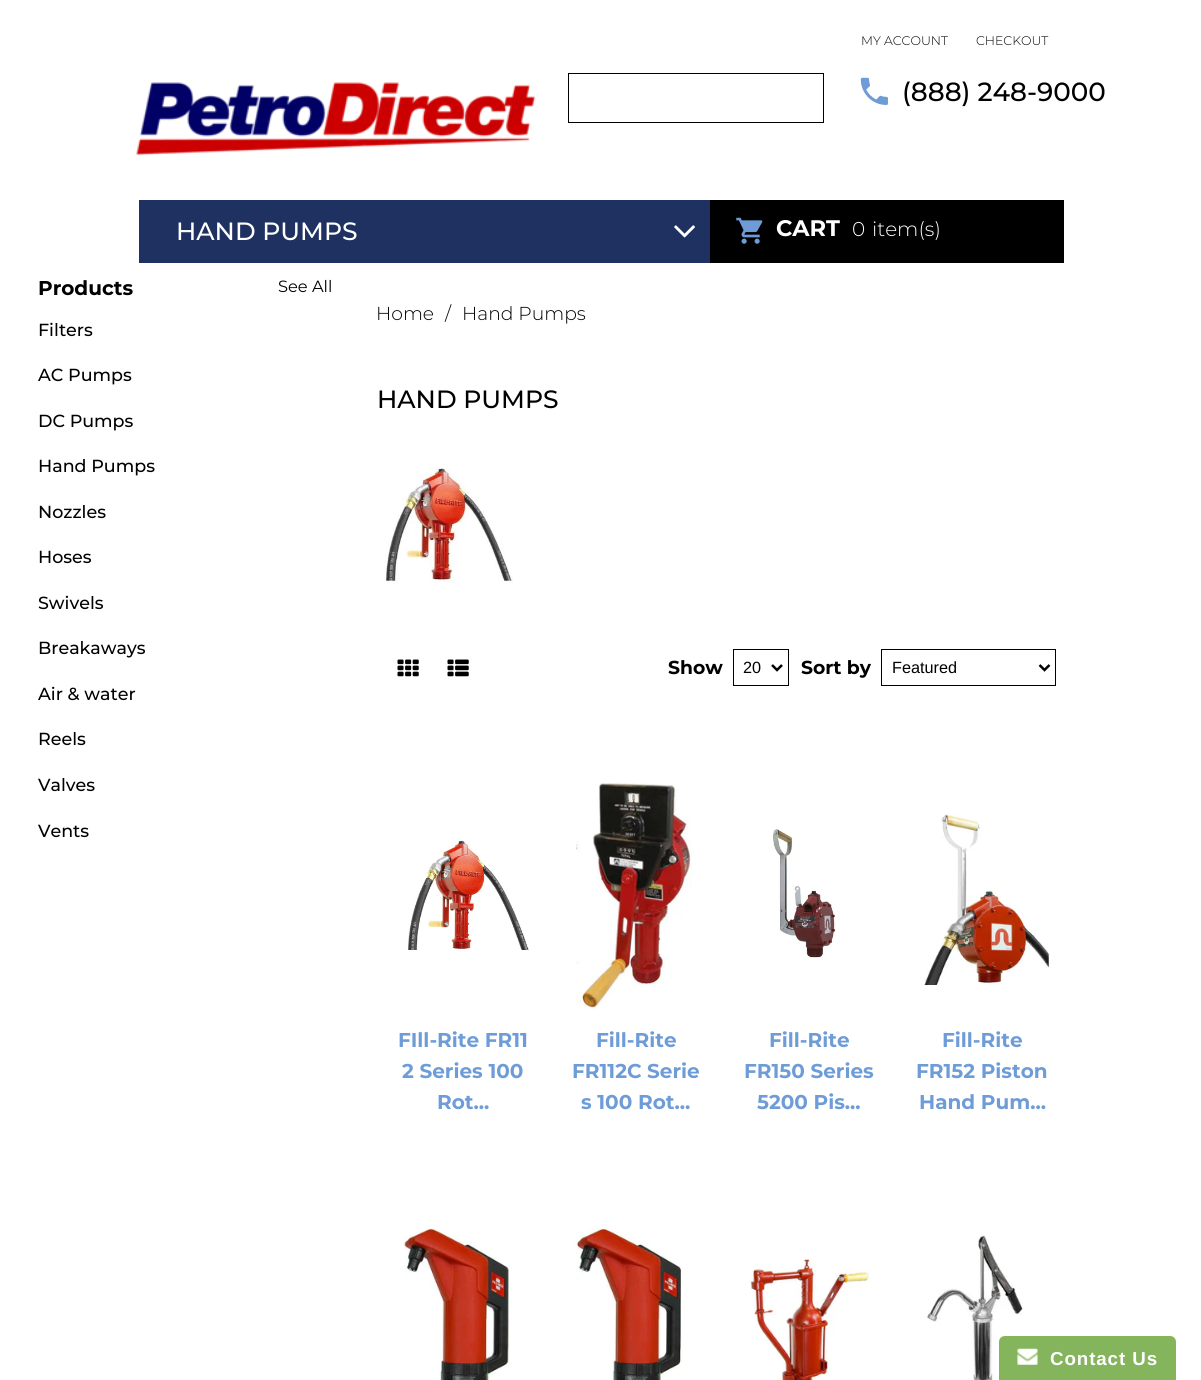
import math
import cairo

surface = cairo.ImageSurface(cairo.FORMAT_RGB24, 1201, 1380)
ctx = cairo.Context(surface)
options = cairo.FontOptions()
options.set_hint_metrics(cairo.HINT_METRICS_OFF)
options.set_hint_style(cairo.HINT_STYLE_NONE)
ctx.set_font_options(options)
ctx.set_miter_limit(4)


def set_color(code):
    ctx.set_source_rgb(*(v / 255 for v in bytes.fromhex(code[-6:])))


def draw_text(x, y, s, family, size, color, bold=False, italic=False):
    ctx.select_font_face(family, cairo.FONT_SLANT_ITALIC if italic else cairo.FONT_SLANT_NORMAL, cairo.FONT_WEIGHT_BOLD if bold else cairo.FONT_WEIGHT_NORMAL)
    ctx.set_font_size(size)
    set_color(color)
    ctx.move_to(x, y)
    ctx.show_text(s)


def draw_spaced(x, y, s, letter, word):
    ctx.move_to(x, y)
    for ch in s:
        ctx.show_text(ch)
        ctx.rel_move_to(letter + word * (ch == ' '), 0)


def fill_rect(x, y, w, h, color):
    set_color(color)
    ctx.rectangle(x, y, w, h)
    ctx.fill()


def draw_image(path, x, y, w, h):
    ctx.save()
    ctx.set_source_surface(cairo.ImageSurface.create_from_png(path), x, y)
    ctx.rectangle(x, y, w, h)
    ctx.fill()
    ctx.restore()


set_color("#ffffff")
ctx.paint()
draw_image("assets/img1.png", 136, 82, 400, 74)
ctx.rectangle(568.5, 73.5, 255, 49)
set_color("#000000")
ctx.set_line_width(1)
ctx.stroke()
draw_text(861, 45, "MY ACCOUNT", "Montserrat Light", 12.5, "#000000")
draw_text(976, 45, "CHECKOUT", "Montserrat Light", 12.5, "#000000")
draw_image("assets/img2.png", 860, 77, 28, 28)
draw_text(902, 101, "(888) 248-9000", "Montserrat Medium", 26.25, "#000000")
fill_rect(139, 200, 571, 63, "#1e3161")
draw_text(176, 240, "HAND PUMPS", "Montserrat Medium", 25, "#ffffff")
draw_image("assets/img3.png", 674, 225, 21, 13)
draw_text(38, 295, "Products", "Montserrat", 20, "#000000", bold=True)
draw_text(278, 292, "See All", "Montserrat", 16.25, "#000000")
draw_text(38, 336, "Filters", "Montserrat Medium", 17.5, "#000000")
draw_text(38, 381, "AC Pumps", "Montserrat Medium", 17.5, "#000000")
draw_text(38, 427, "DC Pumps", "Montserrat Medium", 17.5, "#000000")
draw_text(38, 472, "Hand Pumps", "Montserrat Medium", 17.5, "#000000")
draw_text(38, 518, "Nozzles", "Montserrat Medium", 17.5, "#000000")
draw_text(38, 563, "Hoses", "Montserrat Medium", 17.5, "#000000")
draw_text(38, 609, "Swivels", "Montserrat Medium", 17.5, "#000000")
draw_text(38, 654, "Breakaways", "Montserrat Medium", 17.5, "#000000")
draw_text(38, 700, "Air & water", "Montserrat Medium", 17.5, "#000000")
draw_text(38, 745, "Reels", "Montserrat Medium", 17.5, "#000000")
draw_text(38, 791, "Valves", "Montserrat Medium", 17.5, "#000000")
draw_text(38, 837, "Vents", "Montserrat Medium", 17.5, "#000000")
fill_rect(710, 200, 354, 63, "#000000")
draw_image("assets/img4.png", 736, 217, 27, 27)
draw_text(776, 236, "CART", "Montserrat", 22.5, "#ffffff", bold=True)
draw_text(852, 236, "0", "Montserrat Light", 20, "#ffffff")
draw_text(872, 236, "item(s)", "Montserrat Light", 20, "#ffffff")
draw_text(376, 320, "Home", "Montserrat Light", 18.75, "#000000")
draw_text(445, 320, "/", "Montserrat Light", 18.75, "#000000")
draw_text(462, 320, "Hand Pumps", "Montserrat Light", 18.75, "#000000")
draw_text(377, 408, "HAND PUMPS", "Montserrat Medium", 25, "#000000")
draw_image("assets/img5.png", 385, 468, 128, 115)
draw_image("assets/img6.png", 397, 659, 22, 18)
draw_image("assets/img7.png", 447, 659, 22, 18)
draw_text(668, 674, "Show", "Montserrat", 18.75, "#000000", bold=True)
ctx.rectangle(733.5, 649.5, 55, 36)
ctx.stroke()
ctx.new_path()
ctx.move_to(772, 665)
ctx.line_to(777, 670)
ctx.line_to(782, 665)
ctx.set_line_width(2.5)
ctx.stroke()
draw_text(743, 673, "20", "Liberation Sans", 16.25, "#000000")
draw_text(801, 674, "Sort by", "Montserrat", 18.75, "#000000", bold=True)
ctx.rectangle(881.5, 649.5, 174, 36)
ctx.set_line_width(1)
ctx.stroke()
ctx.new_path()
ctx.move_to(1039.5, 665)
ctx.line_to(1044.5, 670)
ctx.line_to(1049.5, 665)
ctx.set_line_width(2.5)
ctx.stroke()
draw_text(892, 673, "Featured", "Liberation Sans", 16.25, "#000000")
draw_image("assets/img8.png", 408, 840, 121, 110)
draw_text(398, 1047, "FIll-Rite FR11", "Montserrat", 20, "#6e9cd7", bold=True)
draw_text(402, 1078, "2 Series 100", "Montserrat", 20, "#6e9cd7", bold=True)
draw_text(437, 1109, "Rot...", "Montserrat", 20, "#6e9cd7", bold=True)
draw_image("assets/img9.png", 576, 783, 116, 227)
draw_text(596, 1047, "Fill-Rite", "Montserrat", 20, "#6e9cd7", bold=True)
draw_text(572, 1078, "FR112C Serie", "Montserrat", 20, "#6e9cd7", bold=True)
draw_text(581, 1109, "s 100 Rot...", "Montserrat", 20, "#6e9cd7", bold=True)
draw_image("assets/img10.png", 773, 829, 63, 129)
draw_text(769, 1047, "Fill-Rite", "Montserrat", 20, "#6e9cd7", bold=True)
draw_text(744, 1078, "FR150 Series", "Montserrat", 20, "#6e9cd7", bold=True)
draw_text(757, 1109, "5200 Pis...", "Montserrat", 20, "#6e9cd7", bold=True)
draw_image("assets/img11.png", 924, 814, 125, 171)
draw_text(942, 1047, "Fill-Rite", "Montserrat", 20, "#6e9cd7", bold=True)
draw_text(916, 1078, "FR152 Piston", "Montserrat", 20, "#6e9cd7", bold=True)
draw_text(919, 1109, "Hand Pum...", "Montserrat", 20, "#6e9cd7", bold=True)
draw_image("assets/img12.png", 403, 1228, 107, 152)
draw_image("assets/img13.png", 575, 1228, 107, 152)
draw_image("assets/img14.png", 750, 1256, 120, 124)
draw_image("assets/img15.png", 927, 1235, 96, 145)
set_color("#84b45b")
ctx.new_path()
ctx.move_to(1005, 1336)
ctx.line_to(1170, 1336)
ctx.curve_to(1173.5, 1336, 1176, 1338.5, 1176, 1342)
ctx.line_to(1176, 1380)
ctx.line_to(999, 1380)
ctx.line_to(999, 1342)
ctx.curve_to(999, 1338.5, 1001.5, 1336, 1005, 1336)
ctx.close_path()
ctx.fill()
draw_image("assets/img16.png", 1017, 1348, 21, 17)
ctx.select_font_face("Liberation Sans", cairo.FONT_SLANT_NORMAL, cairo.FONT_WEIGHT_BOLD)
ctx.set_font_size(18.75)
set_color("#ffffff")
draw_spaced(1050, 1365, "Contact Us", 0.9, 0)
surface.write_to_png("output.png")
